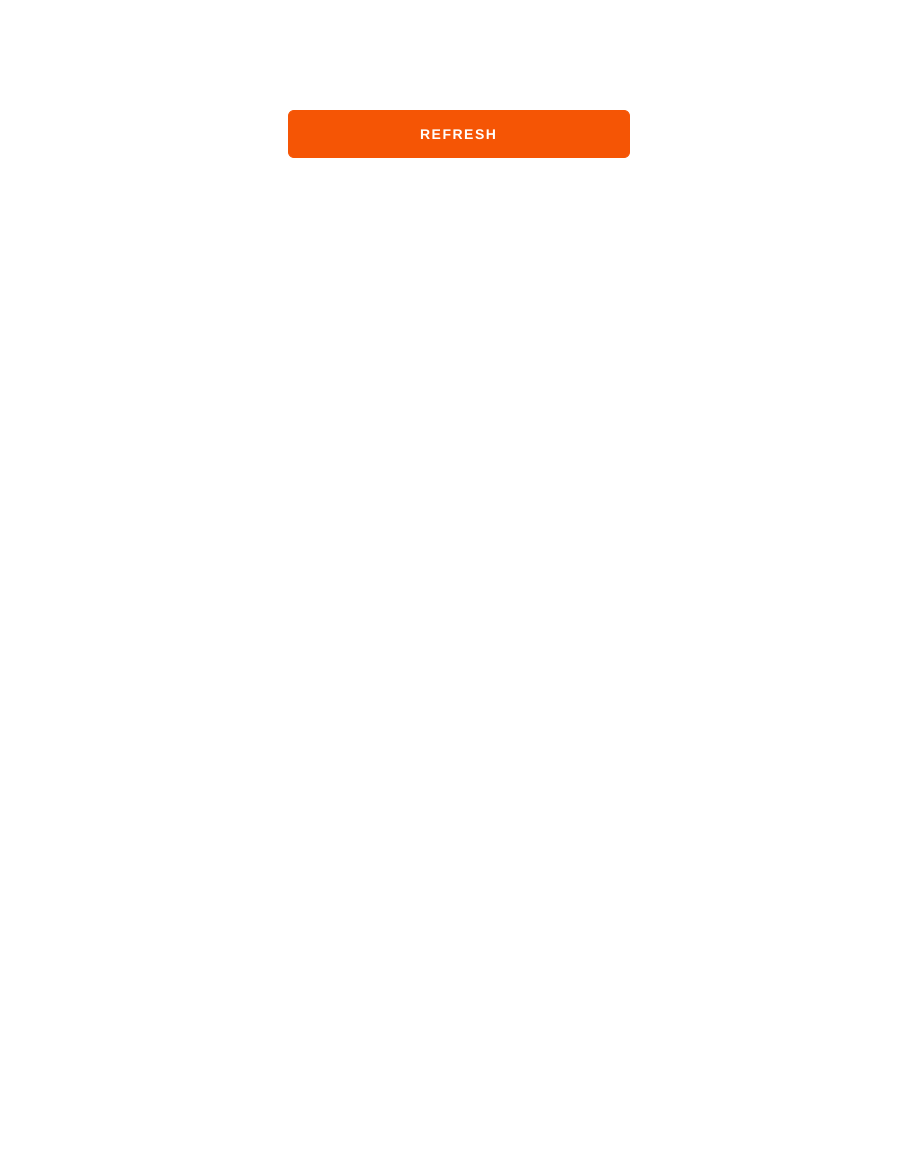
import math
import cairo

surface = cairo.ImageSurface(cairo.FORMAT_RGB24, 917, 1173)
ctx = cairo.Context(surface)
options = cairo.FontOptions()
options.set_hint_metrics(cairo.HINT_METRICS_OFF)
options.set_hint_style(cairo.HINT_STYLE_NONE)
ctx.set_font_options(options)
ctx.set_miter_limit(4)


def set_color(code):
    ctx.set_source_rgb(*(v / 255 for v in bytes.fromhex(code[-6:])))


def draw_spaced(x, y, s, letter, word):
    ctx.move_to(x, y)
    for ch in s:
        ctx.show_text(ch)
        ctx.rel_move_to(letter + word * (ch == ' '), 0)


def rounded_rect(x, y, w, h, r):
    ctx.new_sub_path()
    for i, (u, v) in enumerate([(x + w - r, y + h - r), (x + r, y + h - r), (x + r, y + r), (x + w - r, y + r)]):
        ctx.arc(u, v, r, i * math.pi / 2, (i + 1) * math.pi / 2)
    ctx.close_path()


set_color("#ffffff")
ctx.paint()
set_color("#f55505")
rounded_rect(288.5, 110.5, 341, 47, 5.5)
ctx.fill_preserve()
ctx.set_line_width(1)
ctx.stroke()
ctx.select_font_face("Liberation Sans", cairo.FONT_SLANT_NORMAL, cairo.FONT_WEIGHT_BOLD)
ctx.set_font_size(14)
set_color("#ffffff")
draw_spaced(420, 139, "REFRESH", 1.5, 0)
surface.write_to_png("output.png")
